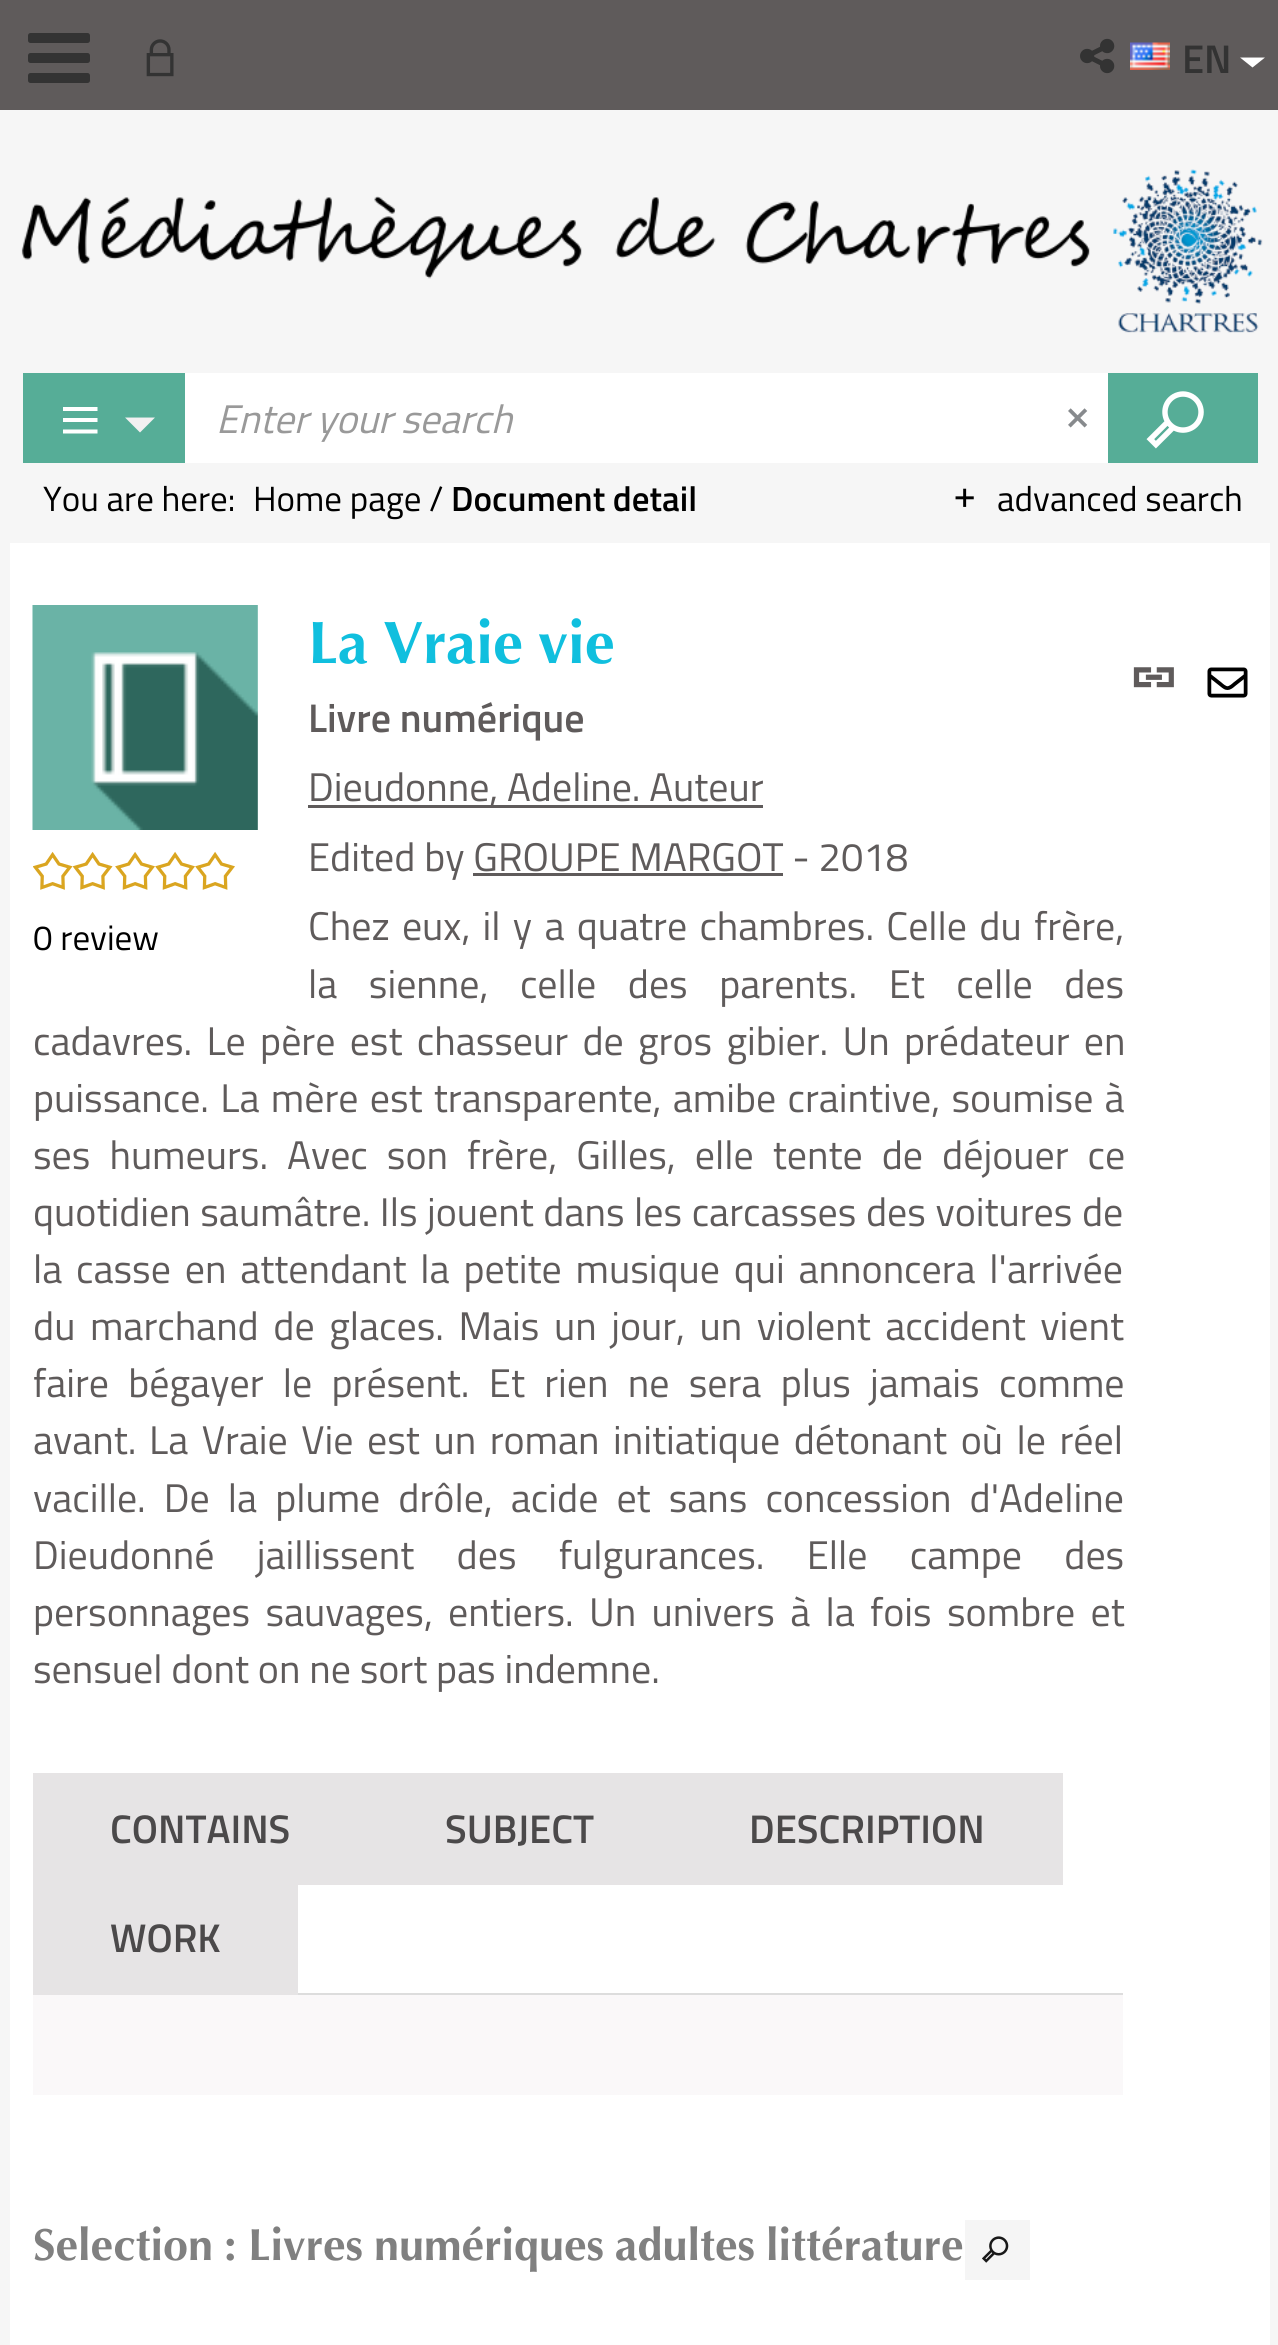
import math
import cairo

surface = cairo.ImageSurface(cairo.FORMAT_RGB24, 1278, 2345)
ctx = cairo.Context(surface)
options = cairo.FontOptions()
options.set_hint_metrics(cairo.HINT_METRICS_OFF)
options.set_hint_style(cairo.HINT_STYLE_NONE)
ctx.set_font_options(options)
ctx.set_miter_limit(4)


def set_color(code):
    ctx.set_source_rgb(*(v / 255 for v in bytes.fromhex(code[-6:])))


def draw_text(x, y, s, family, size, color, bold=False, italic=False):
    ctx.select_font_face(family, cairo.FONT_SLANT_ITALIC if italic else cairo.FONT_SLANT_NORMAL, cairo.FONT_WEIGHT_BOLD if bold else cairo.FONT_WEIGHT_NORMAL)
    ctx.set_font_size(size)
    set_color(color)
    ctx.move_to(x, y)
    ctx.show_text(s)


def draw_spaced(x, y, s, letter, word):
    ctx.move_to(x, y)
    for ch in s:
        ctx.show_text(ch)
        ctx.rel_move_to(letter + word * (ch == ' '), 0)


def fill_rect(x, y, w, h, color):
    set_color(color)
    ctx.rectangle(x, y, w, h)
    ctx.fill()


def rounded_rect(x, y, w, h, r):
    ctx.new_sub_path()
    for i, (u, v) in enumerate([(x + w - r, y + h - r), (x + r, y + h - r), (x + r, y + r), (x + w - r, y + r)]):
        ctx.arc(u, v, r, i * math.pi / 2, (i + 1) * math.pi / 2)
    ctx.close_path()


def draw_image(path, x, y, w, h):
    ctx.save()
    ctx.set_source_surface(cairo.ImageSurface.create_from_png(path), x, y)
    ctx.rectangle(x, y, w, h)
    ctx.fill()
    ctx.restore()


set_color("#f6f6f6")
ctx.paint()
fill_rect(0, 0, 1278, 110, "#5f5b5b")
set_color("#333333")
rounded_rect(28, 33, 62, 10, 2.5)
ctx.fill()
rounded_rect(28, 53, 62, 10, 2.5)
ctx.fill()
rounded_rect(28, 73, 62, 10, 2.5)
ctx.fill()
draw_image("assets/img1.png", 146, 39, 28, 38)
draw_image("assets/img2.png", 1080, 38, 35, 36)
draw_image("assets/img3.png", 1130, 42, 40, 28)
draw_text(1182, 73, "EN", "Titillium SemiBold", 40, "#333333")
set_color("#ffffff")
ctx.new_path()
ctx.move_to(1240, 57.5)
ctx.line_to(1265, 57.5)
ctx.line_to(1252.5, 67.5)
ctx.close_path()
ctx.fill()
draw_image("assets/img4.png", 21, 169, 1242, 164)
fill_rect(23, 373, 162, 90, "#56ad97")
set_color("#ffffff")
ctx.new_path()
ctx.move_to(63, 407)
ctx.line_to(97.5, 407)
ctx.line_to(97.5, 411)
ctx.line_to(63, 411)
ctx.close_path()
ctx.move_to(63, 422)
ctx.line_to(97.5, 422)
ctx.line_to(97.5, 418)
ctx.line_to(63, 418)
ctx.close_path()
ctx.move_to(63, 433.5)
ctx.line_to(97.5, 433.5)
ctx.line_to(97.5, 429.5)
ctx.line_to(63, 429.5)
ctx.close_path()
ctx.fill()
set_color("#f2f0f1")
ctx.new_path()
ctx.move_to(125, 417.5)
ctx.line_to(155, 417.5)
ctx.line_to(140, 432.5)
ctx.close_path()
ctx.fill()
fill_rect(185, 373, 923, 90, "#ffffff")
draw_text(216, 433, "Enter your search", "Titillium", 40, "#999999", italic=True)
draw_image("assets/img5.png", 1068, 408, 20, 20)
fill_rect(1108, 373, 150, 90, "#56ad97")
draw_image("assets/img6.png", 1146, 391, 58, 58)
draw_image("assets/img7.png", 955, 488, 19, 19)
draw_text(997, 511, "advanced search", "Titillium", 35, "#000000")
draw_text(43, 511, "You are here:", "Titillium", 35, "#000000")
draw_text(253, 511, "Home page /", "Titillium", 35, "#000000")
draw_text(451, 511, "Document detail", "Titillium SemiBold", 35, "#000000")
fill_rect(10, 543, 1260, 1802, "#ffffff")
draw_text(308, 663, "La", "Optima", 60, "#10bfde", bold=True)
draw_text(383, 663, "Vraie", "Optima", 60, "#10bfde", bold=True)
draw_text(538, 663, "vie", "Optima", 60, "#10bfde", bold=True)
draw_text(308, 732, "Livre numérique", "Titillium SemiBold", 40, "#5f5b5b")
fill_rect(308, 805, 455, 3, "#5f5b5b")
draw_text(308, 801, "Dieudonne, Adeline. Auteur", "Titillium", 40, "#5f5b5b")
draw_text(308, 871, "Edited by GROUPE MARGOT - 2018", "Titillium", 40, "#5f5b5b")
fill_rect(473, 873, 310, 3, "#5f5b5b")
draw_spaced(308, 940, "Chez eux, il y a quatre chambres. Celle du frère,", 0, 3.5)
draw_spaced(308, 998, "la sienne, celle des parents. Et celle des", 0, 22.75)
draw_spaced(33, 1055, "cadavres. Le père est chasseur de gros gibier. Un prédateur en", 0, 5.5)
draw_spaced(33, 1112, "puissance. La mère est transparente, amibe craintive, soumise à", 0, 2.5)
draw_spaced(33, 1169, "ses humeurs. Avec son frère, Gilles, elle tente de déjouer ce", 0, 10.25)
draw_spaced(33, 1226, "quotidien saumâtre. Ils jouent dans les carcasses des voitures de", 0, 0.75)
draw_spaced(33, 1283, "la casse en attendant la petite musique qui annoncera l'arrivée", 0, 5)
draw_spaced(33, 1340, "du marchand de glaces. Mais un jour, un violent accident vient", 0, 5.75)
draw_spaced(33, 1397, "faire bégayer le présent. Et rien ne sera plus jamais comme", 0, 10.5)
draw_text(33, 1454, "avant.", "Titillium", 40, "#5f5b5b")
draw_spaced(149, 1454, "La Vraie Vie est un roman initiatique détonant où le réel", 0, 4.75)
draw_spaced(33, 1512, "vacille. De la plume drôle, acide et sans concession d'Adeline", 0, 9.25)
draw_spaced(33, 1569, "Dieudonné jaillissent des fulgurances. Elle campe des", 0, 33.5)
draw_spaced(33, 1626, "personnages sauvages, entiers. Un univers à la fois sombre et", 0, 6.5)
draw_text(33, 1683, "sensuel dont on ne sort pas indemne.", "Titillium", 40, "#5f5b5b")
fill_rect(298, 1993, 825, 2, "#dddddd")
fill_rect(33, 1773, 1030, 112, "#e6e4e5")
draw_text(110, 1843, "CONTAINS", "Titillium SemiBold", 40, "#4b494a")
draw_text(445, 1843, "SUBJECT", "Titillium SemiBold", 40, "#4b494a")
draw_text(749, 1843, "DESCRIPTION", "Titillium SemiBold", 40, "#4b494a")
fill_rect(33, 1885, 265, 110, "#e6e4e5")
draw_text(110, 1952, "WORK", "Titillium SemiBold", 40, "#4b494a")
fill_rect(33, 1995, 1090, 100, "#faf8f9")
draw_image("assets/img8.png", 32, 605, 226, 225)
draw_image("assets/img9.png", 32, 605, 226, 225)
draw_image("assets/img10.png", 33, 851, 40, 39)
draw_image("assets/img11.png", 72, 851, 41, 39)
draw_image("assets/img12.png", 115, 851, 40, 39)
draw_image("assets/img12.png", 155, 851, 40, 39)
draw_image("assets/img12.png", 195, 851, 40, 39)
draw_text(33, 950, "0 review", "Titillium", 35, "#000000")
draw_image("assets/img13.png", 1133, 667, 41, 21)
draw_image("assets/img14.png", 1207, 667, 41, 31)
draw_text(33, 2260, "Selection", "Optima", 45, "#808080", bold=True)
draw_text(224, 2260, ":", "Optima", 45, "#808080", bold=True)
draw_text(248, 2260, "Livres", "Optima", 45, "#808080", bold=True)
draw_text(374, 2260, "numériques", "Optima", 45, "#808080", bold=True)
draw_text(615, 2260, "adultes", "Optima", 45, "#808080", bold=True)
draw_text(766, 2260, "littérature", "Optima", 45, "#808080", bold=True)
fill_rect(965, 2220, 65, 60, "#f5f5f5")
draw_image("assets/img15.png", 982, 2236, 27, 27)
surface.write_to_png("output.png")
